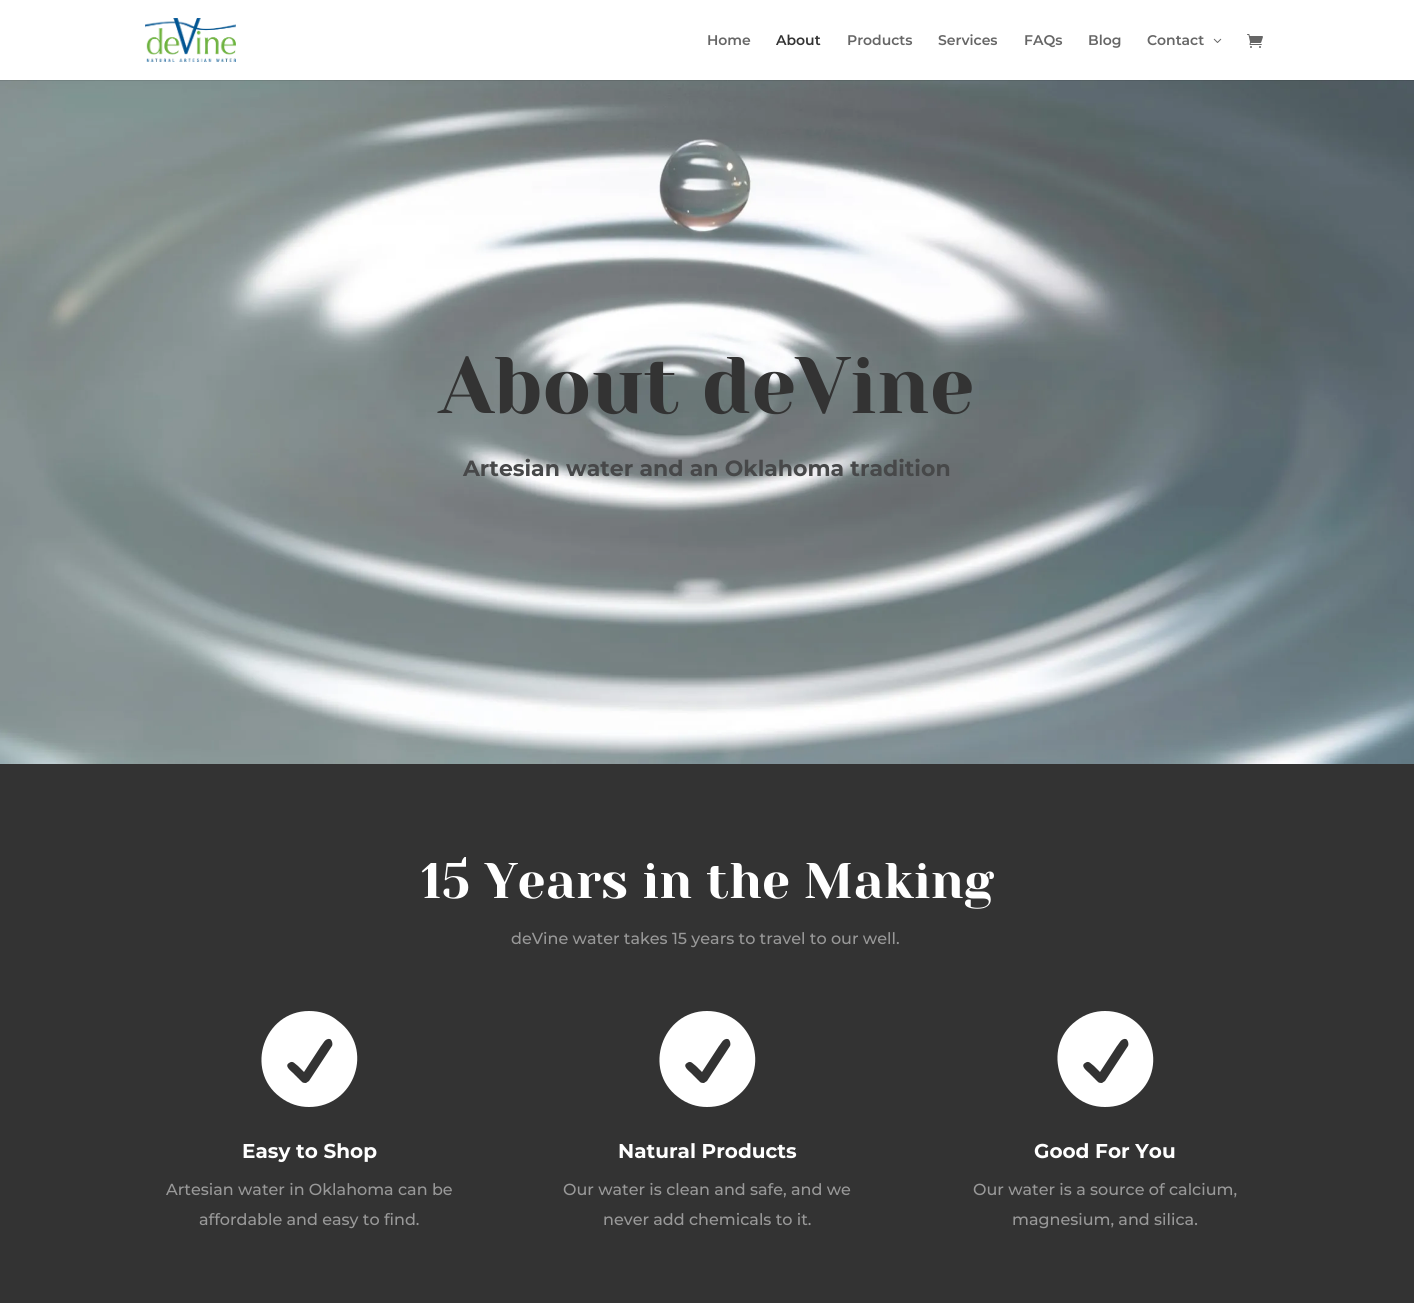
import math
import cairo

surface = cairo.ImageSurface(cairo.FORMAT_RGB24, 1414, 1303)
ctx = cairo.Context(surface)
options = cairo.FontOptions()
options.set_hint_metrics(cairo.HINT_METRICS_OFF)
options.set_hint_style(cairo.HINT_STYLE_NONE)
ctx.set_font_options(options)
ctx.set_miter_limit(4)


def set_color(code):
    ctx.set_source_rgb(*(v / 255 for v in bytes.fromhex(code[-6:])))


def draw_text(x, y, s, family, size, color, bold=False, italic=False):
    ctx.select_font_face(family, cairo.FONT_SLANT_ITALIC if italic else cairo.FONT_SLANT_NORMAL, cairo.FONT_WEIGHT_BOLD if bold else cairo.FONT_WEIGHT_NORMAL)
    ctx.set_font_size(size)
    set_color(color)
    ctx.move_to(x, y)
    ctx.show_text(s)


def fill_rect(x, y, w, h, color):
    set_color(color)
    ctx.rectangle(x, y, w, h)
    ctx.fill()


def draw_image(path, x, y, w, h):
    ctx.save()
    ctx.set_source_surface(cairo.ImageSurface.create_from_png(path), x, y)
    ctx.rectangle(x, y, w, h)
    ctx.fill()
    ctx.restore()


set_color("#ffffff")
ctx.paint()
draw_image("assets/img4.png", 0, 80, 1414, 684)
ctx.set_source_rgba(0, 0, 0, 0.1)
ctx.rectangle(0, 80, 1414, 1)
ctx.fill()
draw_image("assets/img1.png", 145, 18, 91, 44)
draw_text(707, 45, "Home", "Montserrat SemiBold", 14, "#666666")
draw_text(776, 45, "About", "Montserrat SemiBold", 14, "#333333")
draw_text(847, 45, "Products", "Montserrat SemiBold", 14, "#666666")
draw_text(938, 45, "Services", "Montserrat SemiBold", 14, "#666666")
draw_text(1024, 45, "FAQs", "Montserrat SemiBold", 14, "#666666")
draw_text(1088, 45, "Blog", "Montserrat SemiBold", 14, "#666666")
draw_text(1147, 45, "Contact", "Montserrat SemiBold", 14, "#666666")
draw_image("assets/img2.png", 1213, 38, 9, 5)
draw_image("assets/img3.png", 1247, 34, 16, 14)
draw_text(439, 413, "About deVine", "Yeseva One", 80, "#333333")
draw_text(463, 476, "Artesian water and an Oklahoma tradition", "Montserrat", 22, "#474849", bold=True)
fill_rect(0, 764, 1414, 539, "#333333")
draw_text(421, 898, "15 Years in the Making", "Yeseva One", 50, "#ffffff")
draw_text(511, 944, "deVine water takes 15 years to travel to our well.", "Montserrat Medium", 16, "#999999")
set_color("#ffffff")
ctx.new_path()
ctx.move_to(309, 1011)
ctx.curve_to(264, 1011, 244, 1070, 280, 1097)
ctx.curve_to(289, 1104, 299, 1107, 309, 1107)
ctx.curve_to(355, 1107, 375, 1048, 338, 1021)
ctx.curve_to(330, 1014, 320, 1011, 309, 1011)
ctx.close_path()
ctx.move_to(332, 1046)
ctx.line_to(309, 1081)
ctx.line_to(306, 1083)
ctx.curve_to(305, 1083, 303, 1083, 302, 1082)
ctx.line_to(293, 1073)
ctx.curve_to(291, 1071, 284, 1066, 289, 1063)
ctx.curve_to(293, 1060, 295, 1064, 298, 1066)
ctx.line_to(304, 1072)
ctx.line_to(321, 1046)
ctx.curve_to(323, 1044, 325, 1038, 330, 1039)
ctx.curve_to(332, 1040, 333, 1044, 332, 1046)
ctx.close_path()
ctx.fill()
draw_text(242, 1158, "Easy to Shop", "Montserrat", 20, "#ffffff", bold=True)
draw_text(166, 1195, "Artesian water in Oklahoma can be", "Montserrat Medium", 16, "#999999")
draw_text(199, 1225, "affordable and easy to find.", "Montserrat Medium", 16, "#999999")
set_color("#ffffff")
ctx.new_path()
ctx.move_to(707, 1011)
ctx.curve_to(662, 1011, 642, 1070, 678, 1097)
ctx.curve_to(687, 1104, 697, 1107, 707, 1107)
ctx.curve_to(718, 1107, 728, 1104, 736, 1097)
ctx.curve_to(773, 1070, 753, 1011, 707, 1011)
ctx.close_path()
ctx.move_to(730, 1046)
ctx.line_to(707, 1081)
ctx.line_to(704, 1083)
ctx.curve_to(703, 1083, 701, 1083, 700, 1082)
ctx.line_to(691, 1073)
ctx.curve_to(689, 1071, 682, 1066, 687, 1063)
ctx.curve_to(691, 1060, 693, 1064, 696, 1066)
ctx.line_to(702, 1072)
ctx.line_to(719, 1046)
ctx.curve_to(721, 1044, 723, 1038, 728, 1039)
ctx.curve_to(730, 1040, 731, 1044, 730, 1046)
ctx.close_path()
ctx.fill()
draw_text(618, 1158, "Natural Products", "Montserrat", 20, "#ffffff", bold=True)
draw_text(563, 1195, "Our water is clean and safe, and we", "Montserrat Medium", 16, "#999999")
draw_text(603, 1225, "never add chemicals to it.", "Montserrat Medium", 16, "#999999")
set_color("#ffffff")
ctx.new_path()
ctx.move_to(1105, 1011)
ctx.curve_to(1095, 1011, 1085, 1014, 1076, 1021)
ctx.curve_to(1040, 1048, 1060, 1107, 1105, 1107)
ctx.curve_to(1116, 1107, 1126, 1104, 1134, 1097)
ctx.curve_to(1171, 1070, 1151, 1011, 1105, 1011)
ctx.close_path()
ctx.move_to(1128, 1046)
ctx.line_to(1105, 1081)
ctx.line_to(1102, 1083)
ctx.curve_to(1101, 1083, 1099, 1083, 1098, 1082)
ctx.line_to(1089, 1073)
ctx.curve_to(1087, 1071, 1080, 1066, 1085, 1063)
ctx.curve_to(1089, 1060, 1091, 1064, 1094, 1066)
ctx.line_to(1100, 1072)
ctx.line_to(1117, 1046)
ctx.curve_to(1119, 1044, 1121, 1038, 1126, 1039)
ctx.curve_to(1128, 1040, 1129, 1044, 1128, 1046)
ctx.close_path()
ctx.fill()
draw_text(1034, 1158, "Good For You", "Montserrat", 20, "#ffffff", bold=True)
draw_text(973, 1195, "Our water is a source of calcium,", "Montserrat Medium", 16, "#999999")
draw_text(1012, 1225, "magnesium, and silica.", "Montserrat Medium", 16, "#999999")
surface.write_to_png("output.png")
